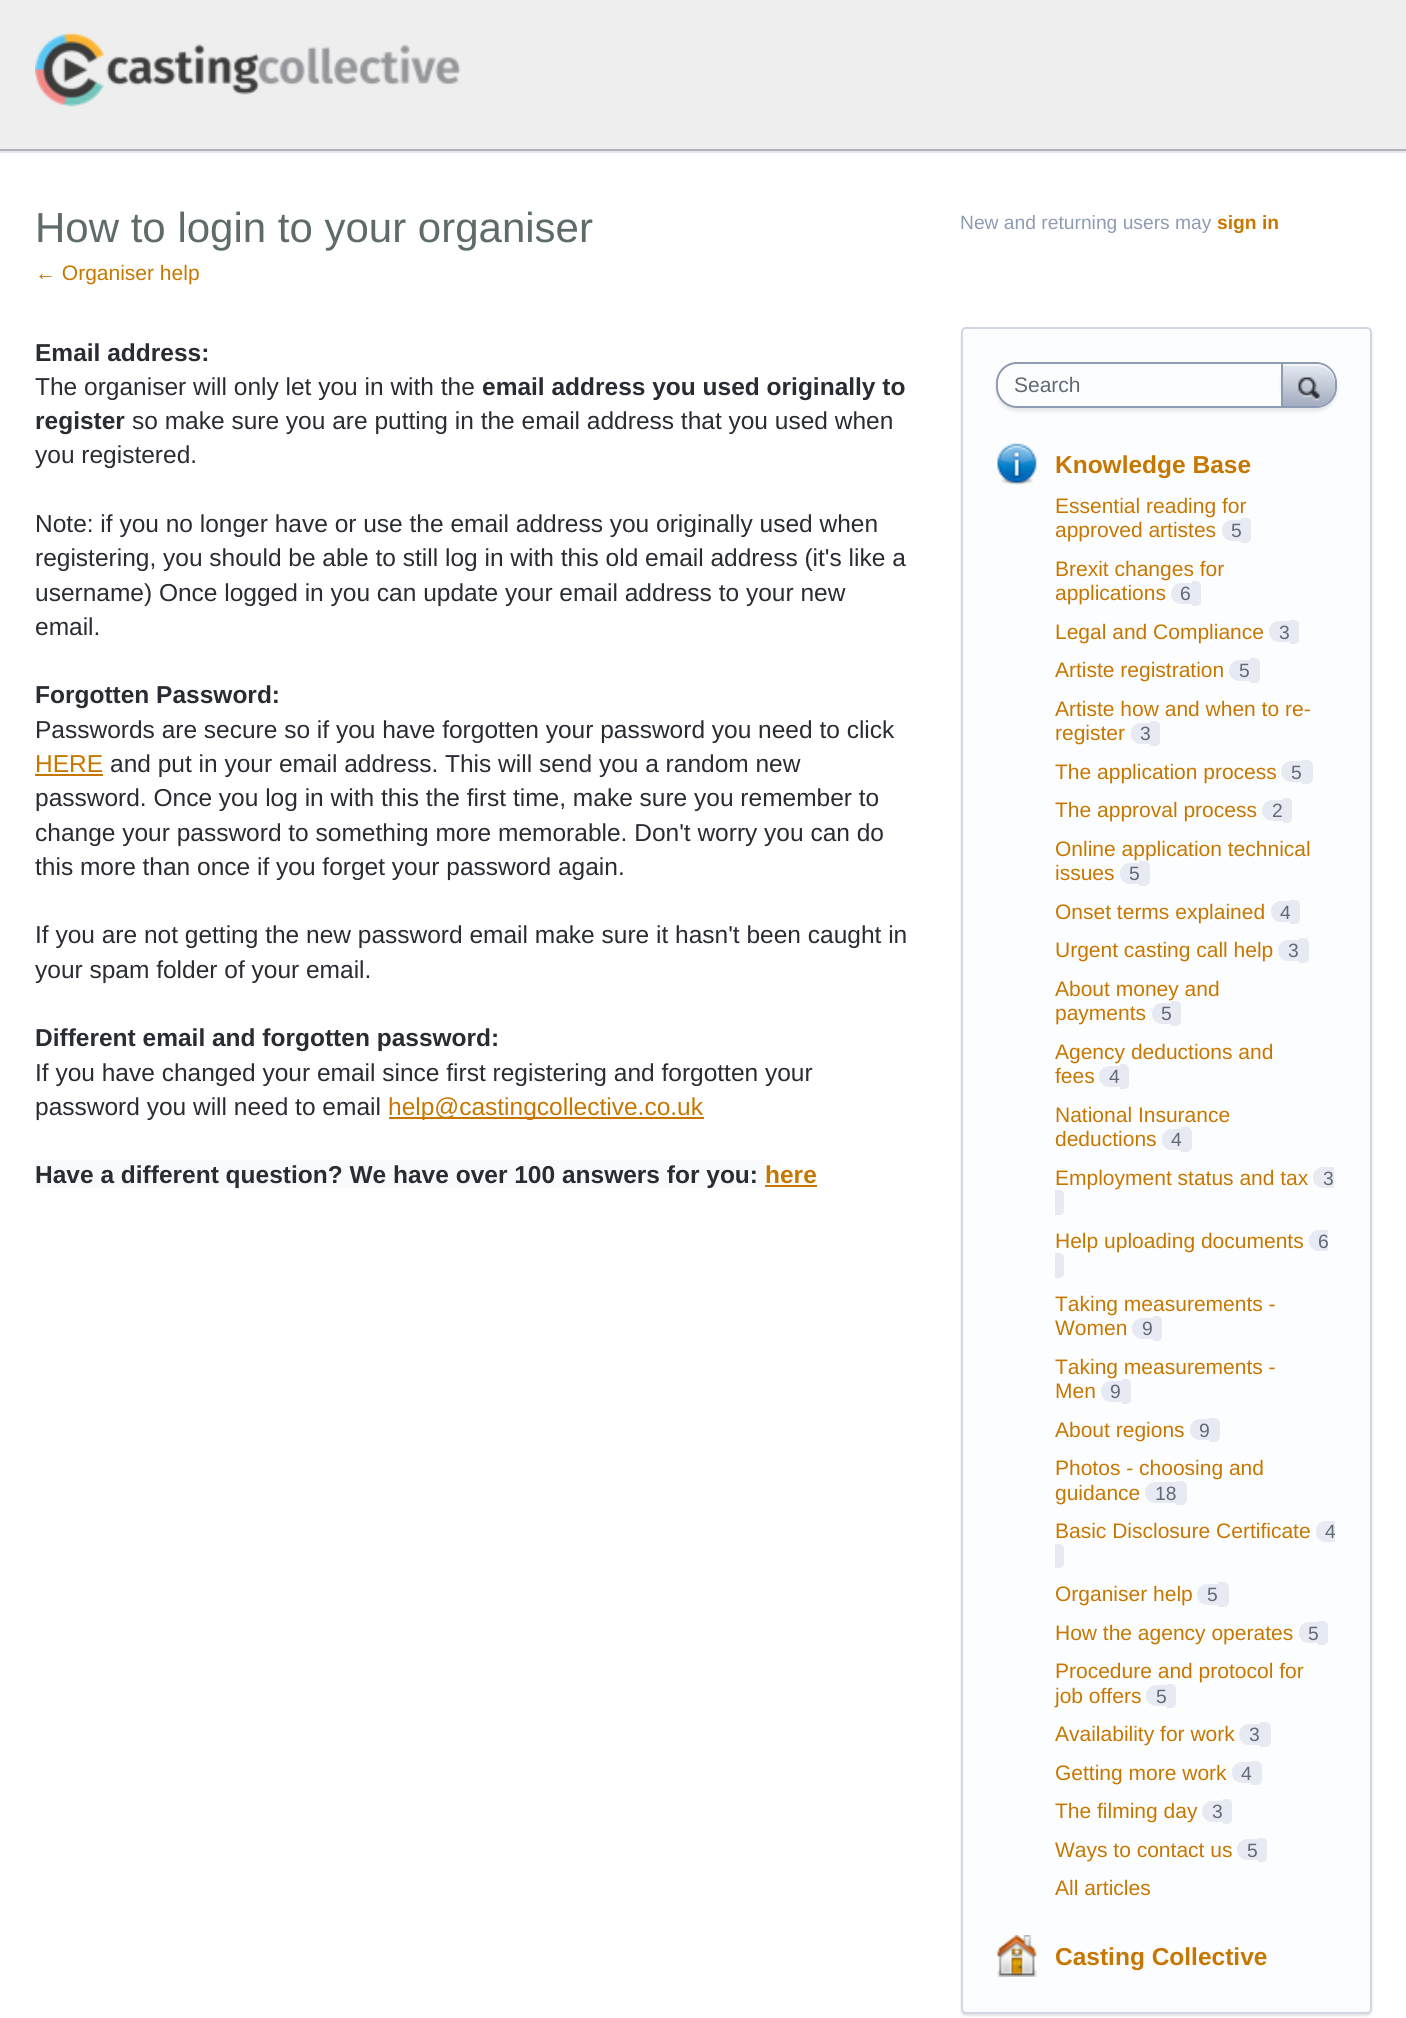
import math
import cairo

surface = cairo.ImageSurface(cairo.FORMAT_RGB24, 1406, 2018)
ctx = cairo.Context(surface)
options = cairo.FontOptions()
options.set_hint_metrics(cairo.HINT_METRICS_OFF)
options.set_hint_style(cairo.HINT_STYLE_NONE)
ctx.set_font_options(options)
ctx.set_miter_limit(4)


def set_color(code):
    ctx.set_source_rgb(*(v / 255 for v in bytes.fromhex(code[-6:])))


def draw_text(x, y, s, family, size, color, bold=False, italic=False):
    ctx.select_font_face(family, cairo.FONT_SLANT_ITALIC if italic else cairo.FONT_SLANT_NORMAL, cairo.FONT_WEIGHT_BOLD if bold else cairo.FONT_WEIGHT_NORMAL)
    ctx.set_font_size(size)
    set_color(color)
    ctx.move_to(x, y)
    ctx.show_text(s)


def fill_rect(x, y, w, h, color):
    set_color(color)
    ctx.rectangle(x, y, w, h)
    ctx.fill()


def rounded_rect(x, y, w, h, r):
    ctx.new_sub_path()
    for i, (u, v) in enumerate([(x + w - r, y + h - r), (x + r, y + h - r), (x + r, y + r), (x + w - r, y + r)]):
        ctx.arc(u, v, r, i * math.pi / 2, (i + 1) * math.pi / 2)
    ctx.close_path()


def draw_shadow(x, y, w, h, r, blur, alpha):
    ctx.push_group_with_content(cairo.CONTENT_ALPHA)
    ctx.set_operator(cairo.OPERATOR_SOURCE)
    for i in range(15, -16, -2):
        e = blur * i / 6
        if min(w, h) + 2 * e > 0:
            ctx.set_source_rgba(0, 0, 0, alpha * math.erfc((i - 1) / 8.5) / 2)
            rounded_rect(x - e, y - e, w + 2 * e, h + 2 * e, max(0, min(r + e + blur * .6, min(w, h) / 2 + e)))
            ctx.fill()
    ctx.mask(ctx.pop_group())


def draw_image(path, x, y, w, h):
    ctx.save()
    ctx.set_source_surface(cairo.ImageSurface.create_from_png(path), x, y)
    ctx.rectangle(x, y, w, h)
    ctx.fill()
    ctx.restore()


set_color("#ffffff")
ctx.paint()
fill_rect(0, 0, 1406, 149, "#eeeeee")
fill_rect(0, 149, 1406, 2, "#b3b3b3")
draw_image("assets/img1.png", 35, 32, 426, 75)
fill_rect(0, 151, 1406, 2, "#e3e8f2")
draw_text(35, 242, "How to login to your organiser", "Liberation Sans", 42, "#5f6b6b")
draw_text(35, 280, "← Organiser help", "Liberation Sans", 21, "#c77700")
draw_text(35, 361, "Email address:", "Liberation Sans", 24.5, "#292c33", bold=True)
draw_text(35, 395, "The organiser will only let you in with the", "Liberation Sans", 24.5, "#292c33")
draw_text(482, 395, "email address you used originally to", "Liberation Sans", 24.5, "#292c33", bold=True)
draw_text(35, 429, "register", "Liberation Sans", 24.5, "#292c33", bold=True)
draw_text(132, 429, "so make sure you are putting in the email address that you used when", "Liberation Sans", 24.5, "#292c33")
draw_text(35, 463, "you registered.", "Liberation Sans", 24.5, "#292c33")
draw_text(35, 532, "Note: if you no longer have or use the email address you originally used when", "Liberation Sans", 24.5, "#292c33")
draw_text(35, 566, "registering, you should be able to still log in with this old email address (it's like a", "Liberation Sans", 24.5, "#292c33")
draw_text(35, 601, "username) Once logged in you can update your email address to your new", "Liberation Sans", 24.5, "#292c33")
draw_text(35, 635, "email.", "Liberation Sans", 24.5, "#292c33")
draw_text(35, 703, "Forgotten Password:", "Liberation Sans", 24.5, "#292c33", bold=True)
draw_text(35, 738, "Passwords are secure so if you have forgotten your password you need to click", "Liberation Sans", 24.5, "#292c33")
draw_text(35, 772, "HERE", "Liberation Sans", 24.5, "#c77700")
fill_rect(35, 774, 68, 2, "#c77700")
draw_text(110, 772, "and put in your email address. This will send you a random new", "Liberation Sans", 24.5, "#292c33")
draw_text(35, 806, "password. Once you log in with this the first time, make sure you remember to", "Liberation Sans", 24.5, "#292c33")
draw_text(35, 841, "change your password to something more memorable. Don't worry you can do", "Liberation Sans", 24.5, "#292c33")
draw_text(35, 875, "this more than once if you forget your password again.", "Liberation Sans", 24.5, "#292c33")
draw_text(35, 943, "If you are not getting the new password email make sure it hasn't been caught in", "Liberation Sans", 24.5, "#292c33")
draw_text(35, 978, "your spam folder of your email.", "Liberation Sans", 24.5, "#292c33")
draw_text(35, 1046, "Different email and forgotten password:", "Liberation Sans", 24.5, "#292c33", bold=True)
draw_text(35, 1081, "If you have changed your email since first registering and forgotten your", "Liberation Sans", 24.5, "#292c33")
draw_text(35, 1115, "password you will need to email", "Liberation Sans", 24.5, "#292c33")
fill_rect(389, 1117, 315, 2, "#c77700")
draw_text(388, 1115, "help@castingcollective.co.uk", "Liberation Sans", 24.5, "#c77700")
fill_rect(35, 1160, 730, 28, "#f9fafb")
draw_text(35, 1183, "Have a different question? We have over 100 answers for you:", "Liberation Sans", 24.5, "#292c33", bold=True)
draw_text(765, 1183, "here", "Liberation Sans", 24.5, "#c77700", bold=True)
fill_rect(765, 1185, 52, 2, "#c77700")
draw_text(960, 229, "New and returning users may", "Liberation Sans", 19.25, "#8f9bb3")
draw_text(1217, 229, "sign in", "Liberation Sans", 19.25, "#c77700", bold=True)
set_color("#000000")
draw_shadow(961, 329, 411, 1687, 5, 1, 0.1)
set_color("#fcfdff")
rounded_rect(962, 328, 409, 1685, 4)
ctx.fill_preserve()
set_color("#cfd7e6")
ctx.stroke()
set_color("#000000")
draw_shadow(996, 366, 341, 45, 21, 2, 0.1)
set_color("#fcfdff")
rounded_rect(997, 363, 339, 44, 20)
ctx.fill_preserve()
set_color("#8f9bb3")
ctx.stroke()
draw_text(1014, 392, "Search", "Liberation Sans", 21, "#616973")
ctx.save()
rounded_rect(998, 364, 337, 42, 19)
ctx.clip()
set_color("#000000")
draw_shadow(1281, 364, 56, 44, 21, 2, 0.1)
ctx.restore()
gradient = cairo.LinearGradient(1283, 364, 1283, 406)
gradient.add_color_stop_rgba(0, 0.902, 0.918, 0.949, 1)
gradient.add_color_stop_rgba(1, 0.635, 0.675, 0.749, 1)
ctx.set_source(gradient)
ctx.new_path()
ctx.move_to(1283, 364)
ctx.line_to(1316, 364)
ctx.curve_to(1327, 364, 1335, 373, 1335, 383)
ctx.line_to(1335, 385)
ctx.curve_to(1335, 397, 1327, 406, 1316, 406)
ctx.line_to(1283, 406)
ctx.close_path()
ctx.fill()
ctx.set_source_rgba(1, 1, 1, 0.5)
ctx.new_path()
ctx.move_to(1283, 366)
ctx.line_to(1316, 366)
ctx.curve_to(1327, 366, 1335, 374, 1335, 385)
ctx.curve_to(1335, 379, 1334, 374, 1330, 370)
ctx.curve_to(1323, 363, 1314, 364, 1305, 364)
ctx.line_to(1283, 364)
ctx.line_to(1283, 406)
ctx.close_path()
ctx.fill()
set_color("#8f9bb3")
ctx.new_path()
ctx.move_to(1335, 385)
ctx.curve_to(1335, 394, 1331.5, 401.5, 1322.5, 405)
ctx.curve_to(1330, 402, 1335, 394.5, 1335, 385)
ctx.close_path()
ctx.fill()
fill_rect(1281, 364, 2, 42, "#8f9bb3")
draw_image("assets/img2.png", 1298, 377, 22, 24)
draw_image("assets/img3.png", 997, 443, 40, 42)
draw_text(1055, 473, "Knowledge Base", "Liberation Sans", 24.5, "#c77700", bold=True)
draw_text(1055, 513, "Essential reading for", "Liberation Sans", 21, "#c77700")
draw_text(1055, 537, "approved artistes", "Liberation Sans", 21, "#c77700")
set_color("#e7eaf2")
ctx.new_path()
ctx.move_to(1231.5, 520)
ctx.line_to(1241, 520)
ctx.line_to(1241, 541)
ctx.line_to(1231.5, 541)
ctx.curve_to(1226.5, 541, 1222, 536.5, 1222, 531.5)
ctx.line_to(1222, 529.5)
ctx.curve_to(1222, 524.5, 1226.5, 520, 1231.5, 520)
ctx.close_path()
ctx.fill()
draw_text(1231, 537, "5", "Liberation Sans", 19.25, "#616973")
set_color("#e7eaf2")
ctx.new_path()
ctx.move_to(1241, 518)
ctx.line_to(1246, 518)
ctx.curve_to(1249, 518, 1251, 520, 1251, 523)
ctx.line_to(1251, 538)
ctx.curve_to(1251, 541, 1249, 543, 1246, 543)
ctx.line_to(1241, 543)
ctx.close_path()
ctx.fill()
draw_text(1055, 576, "Brexit changes for", "Liberation Sans", 21, "#c77700")
draw_text(1055, 600, "applications", "Liberation Sans", 21, "#c77700")
set_color("#e7eaf2")
ctx.new_path()
ctx.move_to(1181.5, 583)
ctx.line_to(1192, 583)
ctx.line_to(1192, 604)
ctx.line_to(1181.5, 604)
ctx.curve_to(1175.5, 604, 1171, 599.5, 1171, 593.5)
ctx.curve_to(1171, 587.5, 1175.5, 583, 1181.5, 583)
ctx.close_path()
ctx.fill()
draw_text(1180, 600, "6", "Liberation Sans", 19.25, "#616973")
set_color("#e7eaf2")
ctx.new_path()
ctx.move_to(1192, 581)
ctx.line_to(1196.5, 581)
ctx.curve_to(1199, 581, 1201, 583, 1201, 585.5)
ctx.line_to(1201, 601.5)
ctx.curve_to(1201, 604, 1199, 606, 1196.5, 606)
ctx.line_to(1192, 606)
ctx.close_path()
ctx.fill()
draw_text(1055, 639, "Legal and Compliance", "Liberation Sans", 21, "#c77700")
set_color("#e7eaf2")
ctx.new_path()
ctx.move_to(1279.5, 621)
ctx.line_to(1290, 621)
ctx.line_to(1290, 642)
ctx.line_to(1279.5, 642)
ctx.curve_to(1273.5, 642, 1269, 637.5, 1269, 631.5)
ctx.curve_to(1269, 625.5, 1273.5, 621, 1279.5, 621)
ctx.close_path()
ctx.fill()
draw_text(1279, 639, "3", "Liberation Sans", 19.25, "#616973")
set_color("#e7eaf2")
ctx.new_path()
ctx.move_to(1290, 620)
ctx.line_to(1294.5, 620)
ctx.curve_to(1297, 620, 1299, 622, 1299, 624.5)
ctx.line_to(1299, 639.5)
ctx.curve_to(1299, 642, 1297, 644, 1294.5, 644)
ctx.line_to(1290, 644)
ctx.close_path()
ctx.fill()
draw_text(1055, 677, "Artiste registration", "Liberation Sans", 21, "#c77700")
set_color("#e7eaf2")
ctx.new_path()
ctx.move_to(1239.5, 660)
ctx.line_to(1250, 660)
ctx.line_to(1250, 681)
ctx.line_to(1239.5, 681)
ctx.curve_to(1233.5, 681, 1229, 676.5, 1229, 670.5)
ctx.curve_to(1229, 664.5, 1233.5, 660, 1239.5, 660)
ctx.close_path()
ctx.fill()
draw_text(1239, 677, "5", "Liberation Sans", 19.25, "#616973")
set_color("#e7eaf2")
ctx.new_path()
ctx.move_to(1250, 658)
ctx.line_to(1255, 658)
ctx.curve_to(1258, 658, 1260, 660, 1260, 663)
ctx.line_to(1260, 678)
ctx.curve_to(1260, 681, 1258, 683, 1255, 683)
ctx.line_to(1250, 683)
ctx.close_path()
ctx.fill()
draw_text(1055, 716, "Artiste how and when to re-", "Liberation Sans", 21, "#c77700")
draw_text(1055, 740, "register", "Liberation Sans", 21, "#c77700")
set_color("#e7eaf2")
ctx.new_path()
ctx.move_to(1140.5, 723)
ctx.line_to(1150, 723)
ctx.line_to(1150, 744)
ctx.line_to(1140.5, 744)
ctx.curve_to(1135.5, 744, 1131, 739.5, 1131, 734.5)
ctx.line_to(1131, 732.5)
ctx.curve_to(1131, 727.5, 1135.5, 723, 1140.5, 723)
ctx.close_path()
ctx.fill()
draw_text(1140, 740, "3", "Liberation Sans", 19.25, "#616973")
set_color("#e7eaf2")
ctx.new_path()
ctx.move_to(1150, 721)
ctx.line_to(1155, 721)
ctx.curve_to(1158, 721, 1160, 723, 1160, 726)
ctx.line_to(1160, 741)
ctx.curve_to(1160, 744, 1158, 746, 1155, 746)
ctx.line_to(1150, 746)
ctx.close_path()
ctx.fill()
draw_text(1055, 779, "The application process", "Liberation Sans", 21, "#c77700")
set_color("#e7eaf2")
ctx.new_path()
ctx.move_to(1291.5, 761)
ctx.line_to(1302, 761)
ctx.line_to(1302, 782)
ctx.line_to(1291.5, 782)
ctx.curve_to(1285.5, 782, 1281, 777.5, 1281, 771.5)
ctx.curve_to(1281, 765.5, 1285.5, 761, 1291.5, 761)
ctx.close_path()
ctx.fill()
draw_text(1291, 779, "5", "Liberation Sans", 19.25, "#616973")
set_color("#e7eaf2")
ctx.new_path()
ctx.move_to(1302, 760)
ctx.line_to(1307.5, 760)
ctx.curve_to(1310.5, 760, 1313, 762.5, 1313, 765.5)
ctx.line_to(1313, 778.5)
ctx.curve_to(1313, 781.5, 1310.5, 784, 1307.5, 784)
ctx.line_to(1302, 784)
ctx.close_path()
ctx.fill()
draw_text(1055, 817, "The approval process", "Liberation Sans", 21, "#c77700")
set_color("#e7eaf2")
ctx.new_path()
ctx.move_to(1272.5, 800)
ctx.line_to(1283, 800)
ctx.line_to(1283, 821)
ctx.line_to(1272.5, 821)
ctx.curve_to(1266.5, 821, 1262, 816.5, 1262, 810.5)
ctx.curve_to(1262, 804.5, 1266.5, 800, 1272.5, 800)
ctx.close_path()
ctx.fill()
draw_text(1272, 817, "2", "Liberation Sans", 19.25, "#616973")
set_color("#e7eaf2")
ctx.new_path()
ctx.move_to(1283, 798)
ctx.line_to(1287.5, 798)
ctx.curve_to(1290, 798, 1292, 800, 1292, 802.5)
ctx.line_to(1292, 818.5)
ctx.curve_to(1292, 821, 1290, 823, 1287.5, 823)
ctx.line_to(1283, 823)
ctx.close_path()
ctx.fill()
draw_text(1055, 856, "Online application technical", "Liberation Sans", 21, "#c77700")
draw_text(1055, 880, "issues", "Liberation Sans", 21, "#c77700")
set_color("#e7eaf2")
ctx.new_path()
ctx.move_to(1129.5, 863)
ctx.line_to(1139, 863)
ctx.line_to(1139, 884)
ctx.line_to(1129.5, 884)
ctx.curve_to(1124.5, 884, 1120, 879.5, 1120, 874.5)
ctx.line_to(1120, 872.5)
ctx.curve_to(1120, 867.5, 1124.5, 863, 1129.5, 863)
ctx.close_path()
ctx.fill()
draw_text(1129, 880, "5", "Liberation Sans", 19.25, "#616973")
set_color("#e7eaf2")
ctx.new_path()
ctx.move_to(1139, 861)
ctx.line_to(1144.5, 861)
ctx.curve_to(1147.5, 861, 1150, 863.5, 1150, 866.5)
ctx.line_to(1150, 880.5)
ctx.curve_to(1150, 883.5, 1147.5, 886, 1144.5, 886)
ctx.line_to(1139, 886)
ctx.close_path()
ctx.fill()
draw_text(1055, 919, "Onset terms explained", "Liberation Sans", 21, "#c77700")
set_color("#e7eaf2")
ctx.new_path()
ctx.move_to(1280.5, 901)
ctx.line_to(1290, 901)
ctx.line_to(1290, 922)
ctx.line_to(1280.5, 922)
ctx.curve_to(1275.5, 922, 1271, 917.5, 1271, 912.5)
ctx.line_to(1271, 910.5)
ctx.curve_to(1271, 905.5, 1275.5, 901, 1280.5, 901)
ctx.close_path()
ctx.fill()
draw_text(1280, 919, "4", "Liberation Sans", 19.25, "#616973")
set_color("#e7eaf2")
ctx.new_path()
ctx.move_to(1290, 900)
ctx.line_to(1295, 900)
ctx.curve_to(1298, 900, 1300, 902, 1300, 905)
ctx.line_to(1300, 919)
ctx.curve_to(1300, 922, 1298, 924, 1295, 924)
ctx.line_to(1290, 924)
ctx.close_path()
ctx.fill()
draw_text(1055, 957, "Urgent casting call help", "Liberation Sans", 21, "#c77700")
set_color("#e7eaf2")
ctx.new_path()
ctx.move_to(1288.5, 940)
ctx.line_to(1299, 940)
ctx.line_to(1299, 961)
ctx.line_to(1288.5, 961)
ctx.curve_to(1282.5, 961, 1278, 956.5, 1278, 950.5)
ctx.curve_to(1278, 944.5, 1282.5, 940, 1288.5, 940)
ctx.close_path()
ctx.fill()
draw_text(1288, 957, "3", "Liberation Sans", 19.25, "#616973")
set_color("#e7eaf2")
ctx.new_path()
ctx.move_to(1299, 938)
ctx.line_to(1304, 938)
ctx.curve_to(1307, 938, 1309, 940, 1309, 943)
ctx.line_to(1309, 958)
ctx.curve_to(1309, 961, 1307, 963, 1304, 963)
ctx.line_to(1299, 963)
ctx.close_path()
ctx.fill()
draw_text(1055, 996, "About money and", "Liberation Sans", 21, "#c77700")
draw_text(1055, 1020, "payments", "Liberation Sans", 21, "#c77700")
set_color("#e7eaf2")
ctx.new_path()
ctx.move_to(1161.5, 1003)
ctx.line_to(1171, 1003)
ctx.line_to(1171, 1024)
ctx.line_to(1161.5, 1024)
ctx.curve_to(1156.5, 1024, 1152, 1019.5, 1152, 1014.5)
ctx.line_to(1152, 1012.5)
ctx.curve_to(1152, 1007.5, 1156.5, 1003, 1161.5, 1003)
ctx.close_path()
ctx.fill()
draw_text(1161, 1020, "5", "Liberation Sans", 19.25, "#616973")
set_color("#e7eaf2")
ctx.new_path()
ctx.move_to(1171, 1001)
ctx.line_to(1176, 1001)
ctx.curve_to(1179, 1001, 1181, 1003, 1181, 1006)
ctx.line_to(1181, 1021)
ctx.curve_to(1181, 1024, 1179, 1026, 1176, 1026)
ctx.line_to(1171, 1026)
ctx.close_path()
ctx.fill()
draw_text(1055, 1059, "Agency deductions and", "Liberation Sans", 21, "#c77700")
draw_text(1055, 1083, "fees", "Liberation Sans", 21, "#c77700")
set_color("#e7eaf2")
ctx.new_path()
ctx.move_to(1109.5, 1066)
ctx.line_to(1120, 1066)
ctx.line_to(1120, 1087)
ctx.line_to(1109.5, 1087)
ctx.curve_to(1103.5, 1087, 1099, 1082.5, 1099, 1076.5)
ctx.curve_to(1099, 1070.5, 1103.5, 1066, 1109.5, 1066)
ctx.close_path()
ctx.fill()
draw_text(1109, 1083, "4", "Liberation Sans", 19.25, "#616973")
set_color("#e7eaf2")
ctx.new_path()
ctx.move_to(1120, 1064)
ctx.line_to(1124.5, 1064)
ctx.curve_to(1127, 1064, 1129, 1066, 1129, 1068.5)
ctx.line_to(1129, 1084.5)
ctx.curve_to(1129, 1087, 1127, 1089, 1124.5, 1089)
ctx.line_to(1120, 1089)
ctx.close_path()
ctx.fill()
draw_text(1055, 1122, "National Insurance", "Liberation Sans", 21, "#c77700")
draw_text(1055, 1146, "deductions", "Liberation Sans", 21, "#c77700")
set_color("#e7eaf2")
ctx.new_path()
ctx.move_to(1171.5, 1129)
ctx.line_to(1181, 1129)
ctx.line_to(1181, 1150)
ctx.line_to(1171.5, 1150)
ctx.curve_to(1166.5, 1150, 1162, 1145.5, 1162, 1140.5)
ctx.line_to(1162, 1138.5)
ctx.curve_to(1162, 1133.5, 1166.5, 1129, 1171.5, 1129)
ctx.close_path()
ctx.fill()
ctx.new_path()
ctx.move_to(1181, 1127)
ctx.line_to(1186.5, 1127)
ctx.curve_to(1189.5, 1127, 1192, 1129.5, 1192, 1132.5)
ctx.line_to(1192, 1146.5)
ctx.curve_to(1192, 1149.5, 1189.5, 1152, 1186.5, 1152)
ctx.line_to(1181, 1152)
ctx.close_path()
ctx.fill()
draw_text(1171, 1146, "4", "Liberation Sans", 19.25, "#616973")
draw_text(1055, 1185, "Employment status and tax", "Liberation Sans", 21, "#c77700")
set_color("#e7eaf2")
ctx.new_path()
ctx.move_to(1323.5, 1167)
ctx.line_to(1334, 1167)
ctx.line_to(1334, 1188)
ctx.line_to(1323.5, 1188)
ctx.curve_to(1317.5, 1188, 1313, 1183.5, 1313, 1177.5)
ctx.curve_to(1313, 1171.5, 1317.5, 1167, 1323.5, 1167)
ctx.close_path()
ctx.fill()
draw_text(1323, 1185, "3", "Liberation Sans", 19.25, "#616973")
set_color("#e7eaf2")
ctx.new_path()
ctx.move_to(1055, 1190)
ctx.line_to(1059.5, 1190)
ctx.curve_to(1062, 1190, 1064, 1192, 1064, 1194.5)
ctx.line_to(1064, 1210.5)
ctx.curve_to(1064, 1213, 1062, 1215, 1059.5, 1215)
ctx.line_to(1055, 1215)
ctx.close_path()
ctx.fill()
draw_text(1055, 1248, "Help uploading documents", "Liberation Sans", 21, "#c77700")
set_color("#e7eaf2")
ctx.new_path()
ctx.move_to(1318.5, 1230)
ctx.line_to(1328, 1230)
ctx.line_to(1328, 1251)
ctx.line_to(1318.5, 1251)
ctx.curve_to(1313.5, 1251, 1309, 1246.5, 1309, 1241.5)
ctx.line_to(1309, 1239.5)
ctx.curve_to(1309, 1234.5, 1313.5, 1230, 1318.5, 1230)
ctx.close_path()
ctx.fill()
draw_text(1318, 1248, "6", "Liberation Sans", 19.25, "#616973")
set_color("#e7eaf2")
ctx.new_path()
ctx.move_to(1055, 1253)
ctx.line_to(1059.5, 1253)
ctx.curve_to(1062, 1253, 1064, 1255, 1064, 1257.5)
ctx.line_to(1064, 1273.5)
ctx.curve_to(1064, 1276, 1062, 1278, 1059.5, 1278)
ctx.line_to(1055, 1278)
ctx.close_path()
ctx.fill()
draw_text(1055, 1311, "Taking measurements -", "Liberation Sans", 21, "#c77700")
draw_text(1055, 1335, "Women", "Liberation Sans", 21, "#c77700")
set_color("#e7eaf2")
ctx.new_path()
ctx.move_to(1142.5, 1318)
ctx.line_to(1153, 1318)
ctx.line_to(1153, 1339)
ctx.line_to(1142.5, 1339)
ctx.curve_to(1136.5, 1339, 1132, 1334.5, 1132, 1328.5)
ctx.curve_to(1132, 1322.5, 1136.5, 1318, 1142.5, 1318)
ctx.close_path()
ctx.fill()
draw_text(1142, 1335, "9", "Liberation Sans", 19.25, "#616973")
set_color("#e7eaf2")
ctx.new_path()
ctx.move_to(1153, 1316)
ctx.line_to(1157.5, 1316)
ctx.curve_to(1160, 1316, 1162, 1318, 1162, 1320.5)
ctx.line_to(1162, 1336.5)
ctx.curve_to(1162, 1339, 1160, 1341, 1157.5, 1341)
ctx.line_to(1153, 1341)
ctx.close_path()
ctx.fill()
draw_text(1055, 1374, "Taking measurements -", "Liberation Sans", 21, "#c77700")
draw_text(1055, 1398, "Men", "Liberation Sans", 21, "#c77700")
set_color("#e7eaf2")
ctx.new_path()
ctx.move_to(1111.5, 1381)
ctx.line_to(1122, 1381)
ctx.line_to(1122, 1402)
ctx.line_to(1111.5, 1402)
ctx.curve_to(1105.5, 1402, 1101, 1397.5, 1101, 1391.5)
ctx.curve_to(1101, 1385.5, 1105.5, 1381, 1111.5, 1381)
ctx.close_path()
ctx.fill()
draw_text(1110, 1398, "9", "Liberation Sans", 19.25, "#616973")
set_color("#e7eaf2")
ctx.new_path()
ctx.move_to(1122, 1379)
ctx.line_to(1126.5, 1379)
ctx.curve_to(1129, 1379, 1131, 1381, 1131, 1383.5)
ctx.line_to(1131, 1399.5)
ctx.curve_to(1131, 1402, 1129, 1404, 1126.5, 1404)
ctx.line_to(1122, 1404)
ctx.close_path()
ctx.fill()
draw_text(1055, 1437, "About regions", "Liberation Sans", 21, "#c77700")
set_color("#e7eaf2")
ctx.new_path()
ctx.move_to(1199.5, 1419)
ctx.line_to(1209, 1419)
ctx.line_to(1209, 1440)
ctx.line_to(1199.5, 1440)
ctx.curve_to(1194.5, 1440, 1190, 1435.5, 1190, 1430.5)
ctx.line_to(1190, 1428.5)
ctx.curve_to(1190, 1423.5, 1194.5, 1419, 1199.5, 1419)
ctx.close_path()
ctx.fill()
draw_text(1199, 1437, "9", "Liberation Sans", 19.25, "#616973")
set_color("#e7eaf2")
ctx.new_path()
ctx.move_to(1209, 1418)
ctx.line_to(1214.5, 1418)
ctx.curve_to(1217.5, 1418, 1220, 1420.5, 1220, 1423.5)
ctx.line_to(1220, 1436.5)
ctx.curve_to(1220, 1439.5, 1217.5, 1442, 1214.5, 1442)
ctx.line_to(1209, 1442)
ctx.close_path()
ctx.fill()
draw_text(1055, 1475, "Photos - choosing and", "Liberation Sans", 21, "#c77700")
draw_text(1055, 1500, "guidance", "Liberation Sans", 21, "#c77700")
set_color("#e7eaf2")
ctx.new_path()
ctx.move_to(1155.5, 1482)
ctx.line_to(1176, 1482)
ctx.line_to(1176, 1503)
ctx.line_to(1155.5, 1503)
ctx.curve_to(1149.5, 1503, 1145, 1498.5, 1145, 1492.5)
ctx.curve_to(1145, 1486.5, 1149.5, 1482, 1155.5, 1482)
ctx.close_path()
ctx.fill()
draw_text(1155, 1500, "18", "Liberation Sans", 19.25, "#616973")
set_color("#e7eaf2")
ctx.new_path()
ctx.move_to(1176, 1481)
ctx.line_to(1181.5, 1481)
ctx.curve_to(1184.5, 1481, 1187, 1483.5, 1187, 1486.5)
ctx.line_to(1187, 1499.5)
ctx.curve_to(1187, 1502.5, 1184.5, 1505, 1181.5, 1505)
ctx.line_to(1176, 1505)
ctx.close_path()
ctx.fill()
draw_text(1055, 1538, "Basic Disclosure Certificate", "Liberation Sans", 21, "#c77700")
set_color("#e7eaf2")
ctx.new_path()
ctx.move_to(1325.5, 1521)
ctx.line_to(1335, 1521)
ctx.line_to(1335, 1542)
ctx.line_to(1325.5, 1542)
ctx.curve_to(1320.5, 1542, 1316, 1537.5, 1316, 1532.5)
ctx.line_to(1316, 1530.5)
ctx.curve_to(1316, 1525.5, 1320.5, 1521, 1325.5, 1521)
ctx.close_path()
ctx.fill()
draw_text(1325, 1538, "4", "Liberation Sans", 19.25, "#616973")
set_color("#e7eaf2")
ctx.new_path()
ctx.move_to(1055, 1544)
ctx.line_to(1059.5, 1544)
ctx.curve_to(1062, 1544, 1064, 1546, 1064, 1548.5)
ctx.line_to(1064, 1563.5)
ctx.curve_to(1064, 1566, 1062, 1568, 1059.5, 1568)
ctx.line_to(1055, 1568)
ctx.close_path()
ctx.fill()
draw_text(1055, 1601, "Organiser help", "Liberation Sans", 21, "#c77700")
set_color("#e7eaf2")
ctx.new_path()
ctx.move_to(1207.5, 1584)
ctx.line_to(1218, 1584)
ctx.line_to(1218, 1605)
ctx.line_to(1207.5, 1605)
ctx.curve_to(1201.5, 1605, 1197, 1600.5, 1197, 1594.5)
ctx.curve_to(1197, 1588.5, 1201.5, 1584, 1207.5, 1584)
ctx.close_path()
ctx.fill()
draw_text(1207, 1601, "5", "Liberation Sans", 19.25, "#616973")
set_color("#e7eaf2")
ctx.new_path()
ctx.move_to(1218, 1582)
ctx.line_to(1223.5, 1582)
ctx.curve_to(1226.5, 1582, 1229, 1584.5, 1229, 1587.5)
ctx.line_to(1229, 1601.5)
ctx.curve_to(1229, 1604.5, 1226.5, 1607, 1223.5, 1607)
ctx.line_to(1218, 1607)
ctx.close_path()
ctx.fill()
draw_text(1055, 1640, "How the agency operates", "Liberation Sans", 21, "#c77700")
set_color("#e7eaf2")
ctx.new_path()
ctx.move_to(1308.5, 1622)
ctx.line_to(1318, 1622)
ctx.line_to(1318, 1643)
ctx.line_to(1308.5, 1643)
ctx.curve_to(1303.5, 1643, 1299, 1638.5, 1299, 1633.5)
ctx.line_to(1299, 1631.5)
ctx.curve_to(1299, 1626.5, 1303.5, 1622, 1308.5, 1622)
ctx.close_path()
ctx.fill()
draw_text(1308, 1640, "5", "Liberation Sans", 19.25, "#616973")
set_color("#e7eaf2")
ctx.new_path()
ctx.move_to(1318, 1621)
ctx.line_to(1323, 1621)
ctx.curve_to(1326, 1621, 1328, 1623, 1328, 1626)
ctx.line_to(1328, 1640)
ctx.curve_to(1328, 1643, 1326, 1645, 1323, 1645)
ctx.line_to(1318, 1645)
ctx.close_path()
ctx.fill()
draw_text(1055, 1678, "Procedure and protocol for", "Liberation Sans", 21, "#c77700")
draw_text(1055, 1703, "job offers", "Liberation Sans", 21, "#c77700")
set_color("#e7eaf2")
ctx.new_path()
ctx.move_to(1156.5, 1685)
ctx.line_to(1167, 1685)
ctx.line_to(1167, 1706)
ctx.line_to(1156.5, 1706)
ctx.curve_to(1150.5, 1706, 1146, 1701.5, 1146, 1695.5)
ctx.curve_to(1146, 1689.5, 1150.5, 1685, 1156.5, 1685)
ctx.close_path()
ctx.fill()
draw_text(1156, 1703, "5", "Liberation Sans", 19.25, "#616973")
set_color("#e7eaf2")
ctx.new_path()
ctx.move_to(1167, 1684)
ctx.line_to(1171.5, 1684)
ctx.curve_to(1174, 1684, 1176, 1686, 1176, 1688.5)
ctx.line_to(1176, 1703.5)
ctx.curve_to(1176, 1706, 1174, 1708, 1171.5, 1708)
ctx.line_to(1167, 1708)
ctx.close_path()
ctx.fill()
draw_text(1055, 1741, "Availability for work", "Liberation Sans", 21, "#c77700")
set_color("#e7eaf2")
ctx.new_path()
ctx.move_to(1249.5, 1724)
ctx.line_to(1260, 1724)
ctx.line_to(1260, 1745)
ctx.line_to(1249.5, 1745)
ctx.curve_to(1243.5, 1745, 1239, 1740.5, 1239, 1734.5)
ctx.curve_to(1239, 1728.5, 1243.5, 1724, 1249.5, 1724)
ctx.close_path()
ctx.fill()
draw_text(1249, 1741, "3", "Liberation Sans", 19.25, "#616973")
set_color("#e7eaf2")
ctx.new_path()
ctx.move_to(1260, 1722)
ctx.line_to(1265.5, 1722)
ctx.curve_to(1268.5, 1722, 1271, 1724.5, 1271, 1727.5)
ctx.line_to(1271, 1741.5)
ctx.curve_to(1271, 1744.5, 1268.5, 1747, 1265.5, 1747)
ctx.line_to(1260, 1747)
ctx.close_path()
ctx.fill()
draw_text(1055, 1780, "Getting more work", "Liberation Sans", 21, "#c77700")
set_color("#e7eaf2")
ctx.new_path()
ctx.move_to(1241.5, 1762)
ctx.line_to(1251, 1762)
ctx.line_to(1251, 1783)
ctx.line_to(1241.5, 1783)
ctx.curve_to(1236.5, 1783, 1232, 1778.5, 1232, 1773.5)
ctx.line_to(1232, 1771.5)
ctx.curve_to(1232, 1766.5, 1236.5, 1762, 1241.5, 1762)
ctx.close_path()
ctx.fill()
ctx.new_path()
ctx.move_to(1251, 1761)
ctx.line_to(1256.5, 1761)
ctx.curve_to(1259.5, 1761, 1262, 1763.5, 1262, 1766.5)
ctx.line_to(1262, 1779.5)
ctx.curve_to(1262, 1782.5, 1259.5, 1785, 1256.5, 1785)
ctx.line_to(1251, 1785)
ctx.close_path()
ctx.fill()
draw_text(1241, 1780, "4", "Liberation Sans", 19.25, "#616973")
draw_text(1055, 1818, "The filming day", "Liberation Sans", 21, "#c77700")
set_color("#e7eaf2")
ctx.new_path()
ctx.move_to(1212.5, 1801)
ctx.line_to(1223, 1801)
ctx.line_to(1223, 1822)
ctx.line_to(1212.5, 1822)
ctx.curve_to(1206.5, 1822, 1202, 1817.5, 1202, 1811.5)
ctx.curve_to(1202, 1805.5, 1206.5, 1801, 1212.5, 1801)
ctx.close_path()
ctx.fill()
draw_text(1212, 1818, "3", "Liberation Sans", 19.25, "#616973")
set_color("#e7eaf2")
ctx.new_path()
ctx.move_to(1223, 1799)
ctx.line_to(1227.5, 1799)
ctx.curve_to(1230, 1799, 1232, 1801, 1232, 1803.5)
ctx.line_to(1232, 1819.5)
ctx.curve_to(1232, 1822, 1230, 1824, 1227.5, 1824)
ctx.line_to(1223, 1824)
ctx.close_path()
ctx.fill()
draw_text(1055, 1857, "Ways to contact us", "Liberation Sans", 21, "#c77700")
set_color("#e7eaf2")
ctx.new_path()
ctx.move_to(1247.5, 1839)
ctx.line_to(1258, 1839)
ctx.line_to(1258, 1860)
ctx.line_to(1247.5, 1860)
ctx.curve_to(1241.5, 1860, 1237, 1855.5, 1237, 1849.5)
ctx.curve_to(1237, 1843.5, 1241.5, 1839, 1247.5, 1839)
ctx.close_path()
ctx.fill()
draw_text(1247, 1857, "5", "Liberation Sans", 19.25, "#616973")
set_color("#e7eaf2")
ctx.new_path()
ctx.move_to(1258, 1838)
ctx.line_to(1262.5, 1838)
ctx.curve_to(1265, 1838, 1267, 1840, 1267, 1842.5)
ctx.line_to(1267, 1857.5)
ctx.curve_to(1267, 1860, 1265, 1862, 1262.5, 1862)
ctx.line_to(1258, 1862)
ctx.close_path()
ctx.fill()
draw_text(1055, 1895, "All articles", "Liberation Sans", 21, "#c77700")
draw_image("assets/img4.png", 997, 1935, 41, 42)
draw_text(1055, 1965, "Casting Collective", "Liberation Sans", 24.5, "#c77700", bold=True)
surface.write_to_png("output.png")
